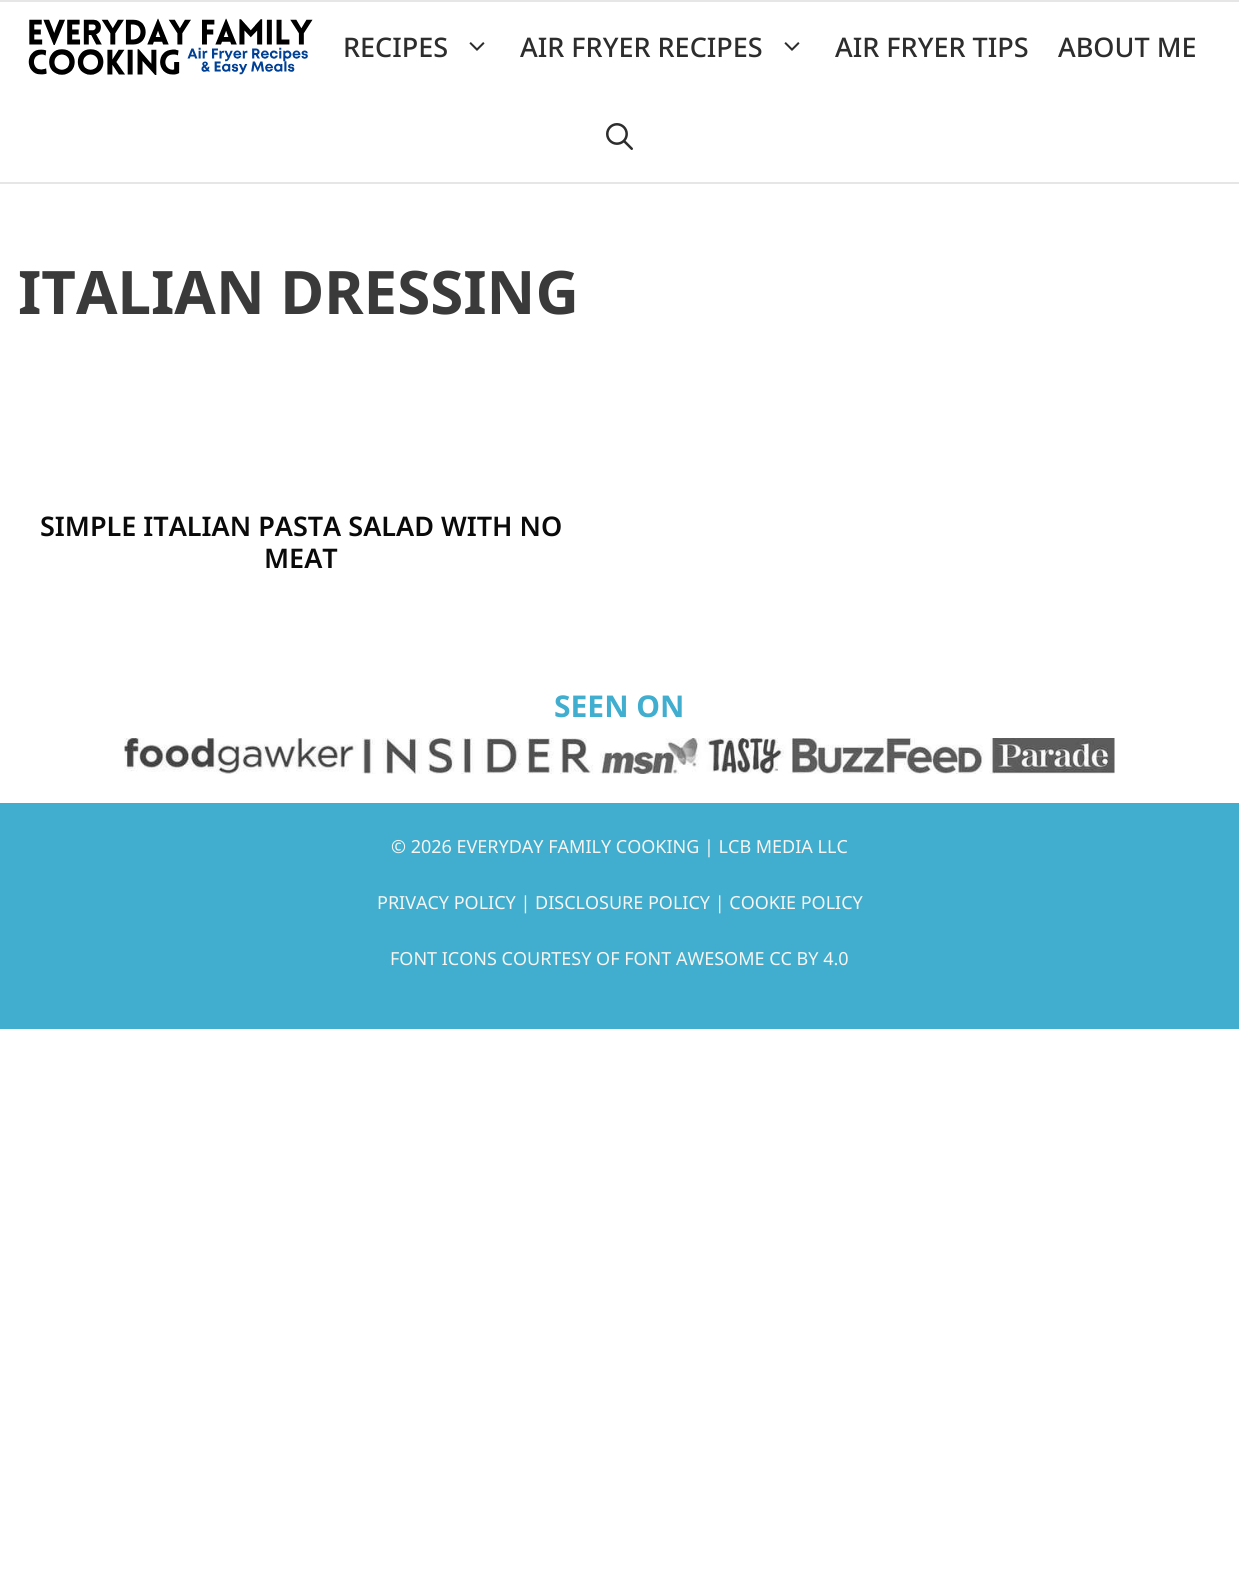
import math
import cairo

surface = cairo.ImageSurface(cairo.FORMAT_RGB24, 1239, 1587)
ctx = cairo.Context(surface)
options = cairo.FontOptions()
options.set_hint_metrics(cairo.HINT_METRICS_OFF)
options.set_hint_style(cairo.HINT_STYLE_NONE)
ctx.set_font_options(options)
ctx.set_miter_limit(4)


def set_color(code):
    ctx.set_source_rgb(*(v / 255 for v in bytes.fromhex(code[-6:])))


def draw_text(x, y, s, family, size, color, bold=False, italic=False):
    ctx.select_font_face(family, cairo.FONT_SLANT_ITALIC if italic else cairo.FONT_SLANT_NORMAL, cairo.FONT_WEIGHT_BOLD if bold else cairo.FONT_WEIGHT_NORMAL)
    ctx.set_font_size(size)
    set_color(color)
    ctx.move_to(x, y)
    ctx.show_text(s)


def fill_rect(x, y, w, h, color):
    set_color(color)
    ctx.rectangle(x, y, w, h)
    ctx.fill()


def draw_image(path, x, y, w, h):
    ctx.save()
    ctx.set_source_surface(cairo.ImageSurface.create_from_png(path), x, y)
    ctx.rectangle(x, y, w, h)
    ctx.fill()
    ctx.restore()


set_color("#ffffff")
ctx.paint()
fill_rect(0, 0, 1239, 2, "#e6e6e6")
fill_rect(0, 182, 1239, 2, "#e6e6e6")
draw_image("assets/img1.png", 28, 18, 285, 57)
draw_text(343, 57, "RECIPES", "Noto Sans Medium", 27, "#2d2d2d")
draw_image("assets/img2.png", 469, 42, 16, 9)
draw_text(520, 57, "AIR FRYER RECIPES", "Noto Sans Medium", 27, "#2d2d2d")
draw_image("assets/img2.png", 784, 42, 16, 9)
draw_text(835, 57, "AIR FRYER TIPS", "Noto Sans Medium", 27, "#2d2d2d")
draw_text(1058, 57, "ABOUT ME", "Noto Sans Medium", 27, "#2d2d2d")
draw_image("assets/img3.png", 606, 123, 27, 27)
draw_text(18, 314, "ITALIAN DRESSING", "Noto Sans", 60, "#3a3a3a", bold=True)
draw_text(40, 536, "SIMPLE ITALIAN PASTA SALAD WITH NO", "Noto Sans SemiBold", 27, "#0a0a0a")
draw_text(264, 568, "MEAT", "Noto Sans SemiBold", 27, "#0a0a0a")
draw_text(554, 717, "SEEN ON", "Noto Sans", 30, "#41aecf", bold=True)
draw_image("assets/img4.png", 124, 738, 991, 36)
fill_rect(0, 803, 1239, 226, "#41aecf")
draw_text(391, 853, "© 2026 EVERYDAY FAMILY COOKING | LCB MEDIA LLC", "Noto Sans", 18, "#f6f4f0")
draw_text(377, 909, "PRIVACY POLICY | DISCLOSURE POLICY | COOKIE POLICY", "Noto Sans", 18, "#f6f4f0")
draw_text(390, 965, "FONT ICONS COURTESY OF FONT AWESOME CC BY 4.0", "Noto Sans", 18, "#f6f4f0")
surface.write_to_png("output.png")
